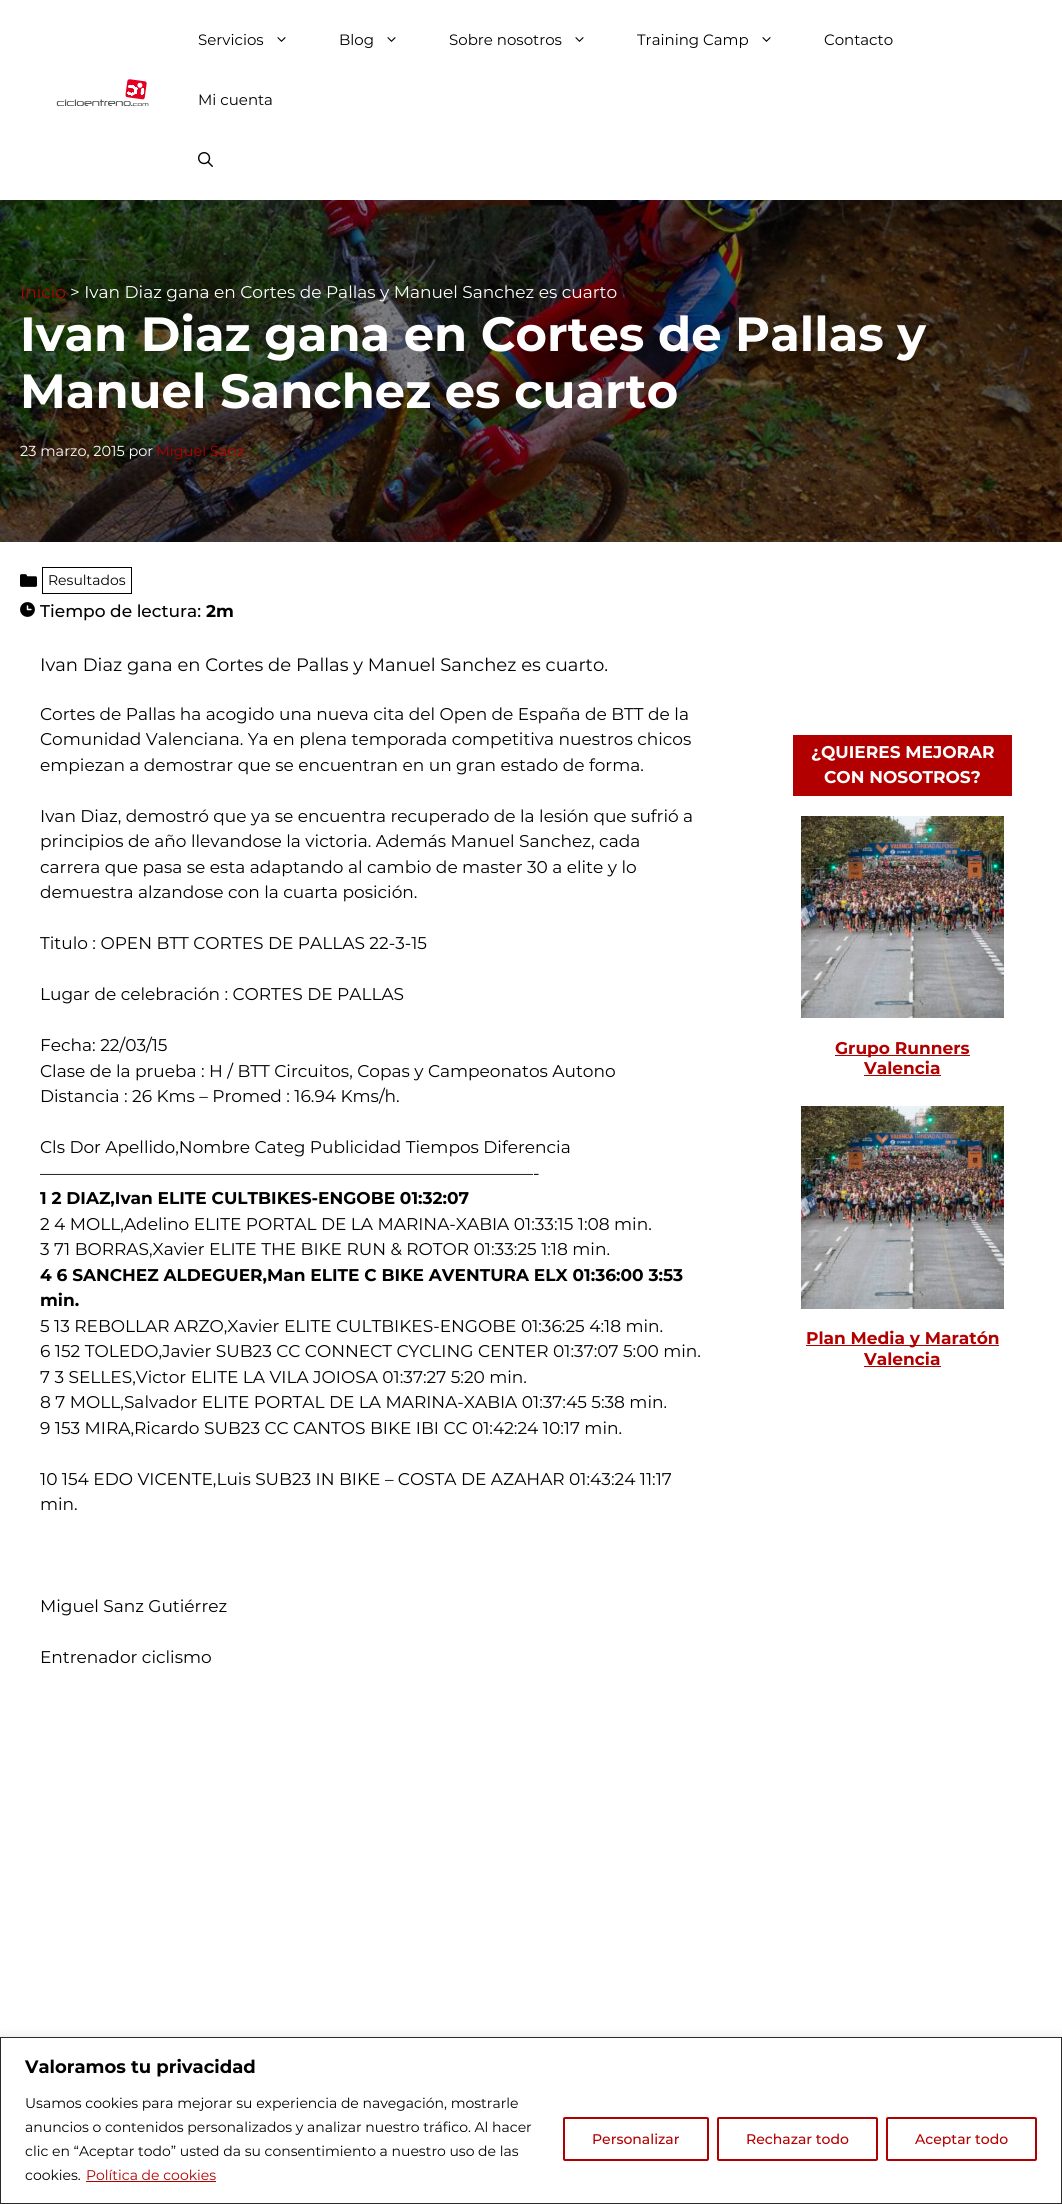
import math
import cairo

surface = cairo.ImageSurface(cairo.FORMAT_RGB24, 1062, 2204)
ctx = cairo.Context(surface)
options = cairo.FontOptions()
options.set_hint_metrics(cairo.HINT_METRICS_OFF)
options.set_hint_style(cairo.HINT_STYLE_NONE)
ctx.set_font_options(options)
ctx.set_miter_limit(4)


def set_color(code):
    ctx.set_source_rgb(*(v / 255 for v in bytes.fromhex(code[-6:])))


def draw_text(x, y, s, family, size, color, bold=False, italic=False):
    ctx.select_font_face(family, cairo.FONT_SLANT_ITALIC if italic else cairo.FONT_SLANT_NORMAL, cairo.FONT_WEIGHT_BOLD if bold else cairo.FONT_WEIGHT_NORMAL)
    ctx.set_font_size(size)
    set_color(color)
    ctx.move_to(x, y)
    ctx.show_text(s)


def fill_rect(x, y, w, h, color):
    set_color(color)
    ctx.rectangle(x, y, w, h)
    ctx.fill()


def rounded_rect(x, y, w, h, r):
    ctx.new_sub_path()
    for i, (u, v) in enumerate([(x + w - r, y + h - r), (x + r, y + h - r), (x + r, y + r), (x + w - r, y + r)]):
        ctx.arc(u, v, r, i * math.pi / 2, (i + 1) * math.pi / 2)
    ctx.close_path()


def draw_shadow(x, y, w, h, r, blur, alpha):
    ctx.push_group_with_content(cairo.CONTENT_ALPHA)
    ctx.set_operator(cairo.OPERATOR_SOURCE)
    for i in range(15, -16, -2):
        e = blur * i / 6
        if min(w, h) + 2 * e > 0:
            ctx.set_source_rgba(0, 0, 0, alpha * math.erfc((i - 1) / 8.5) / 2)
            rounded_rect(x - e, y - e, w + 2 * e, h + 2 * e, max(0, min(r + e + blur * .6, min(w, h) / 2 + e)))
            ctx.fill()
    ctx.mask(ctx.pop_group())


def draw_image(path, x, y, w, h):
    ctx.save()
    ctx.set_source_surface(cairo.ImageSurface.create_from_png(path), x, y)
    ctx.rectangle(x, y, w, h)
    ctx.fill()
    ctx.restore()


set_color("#ffffff")
ctx.paint()
draw_image("assets/img1.png", 56, 79, 93, 27)
draw_text(198, 45, "Servicios", "Montserrat", 15, "#000000")
draw_image("assets/img2.png", 277, 37, 9, 5)
draw_text(339, 45, "Blog", "Montserrat", 15, "#000000")
draw_image("assets/img2.png", 387, 37, 9, 5)
draw_text(449, 45, "Sobre nosotros", "Montserrat", 15, "#000000")
draw_image("assets/img2.png", 575, 37, 9, 5)
draw_text(637, 45, "Training Camp", "Montserrat", 15, "#000000")
draw_image("assets/img2.png", 762, 37, 9, 5)
draw_text(824, 45, "Contacto", "Montserrat", 15, "#000000")
draw_text(198, 105, "Mi cuenta", "Montserrat", 15, "#000000")
draw_image("assets/img3.png", 198, 152, 15, 15)
draw_image("assets/img4.png", 0, 200, 1062, 342)
draw_text(20, 298, "Inicio", "Montserrat", 17, "#b20000")
draw_text(70, 298, "> Ivan Diaz gana en Cortes de Pallas y Manuel Sanchez es cuarto", "Montserrat", 17, "#ffffff")
draw_text(20, 351, "Ivan Diaz gana en Cortes de Pallas y", "Montserrat", 48, "#ffffff", bold=True)
draw_text(20, 408, "Manuel Sanchez es cuarto", "Montserrat", 48, "#ffffff", bold=True)
draw_text(20, 456, "23 marzo, 2015 por", "Montserrat", 14.5, "#ffffff")
draw_text(156, 456, "Miguel Sanz", "Montserrat", 14.5, "#b20000")
draw_image("assets/img5.png", 20, 574, 17, 13)
ctx.rectangle(42.5, 567.5, 89, 26)
set_color("#000000")
ctx.set_line_width(1)
ctx.stroke()
draw_text(48, 585, "Resultados", "Montserrat", 14, "#000000")
draw_image("assets/img6.png", 20, 602, 15, 15)
draw_text(40, 617, "Tiempo de lectura:", "Montserrat Medium", 17, "#000000")
draw_text(206, 617, "2m", "Montserrat", 17, "#000000", bold=True)
draw_text(40, 671, "Ivan Diaz gana en Cortes de Pallas y Manuel Sanchez es cuarto.", "Montserrat", 18, "#000000")
draw_text(40, 720, "Cortes de Pallas ha acogido una nueva cita del Open de España de BTT de la", "Montserrat", 17, "#000000")
draw_text(40, 745, "Comunidad Valenciana. Ya en plena temporada competitiva nuestros chicos", "Montserrat", 17, "#000000")
draw_text(40, 771, "empiezan a demostrar que se encuentran en un gran estado de forma.", "Montserrat", 17, "#000000")
draw_text(40, 822, "Ivan Diaz, demostró que ya se encuentra recuperado de la lesión que sufrió a", "Montserrat", 17, "#000000")
draw_text(40, 847, "principios de año llevandose la victoria. Además Manuel Sanchez, cada", "Montserrat", 17, "#000000")
draw_text(40, 873, "carrera que pasa se esta adaptando al cambio de master 30 a elite y lo", "Montserrat", 17, "#000000")
draw_text(40, 898, "demuestra alzandose con la cuarta posición.", "Montserrat", 17, "#000000")
draw_text(40, 949, "Titulo : OPEN BTT CORTES DE PALLAS 22-3-15", "Montserrat", 17, "#000000")
draw_text(40, 1000, "Lugar de celebración : CORTES DE PALLAS", "Montserrat", 17, "#000000")
draw_text(40, 1051, "Fecha: 22/03/15", "Montserrat", 17, "#000000")
draw_text(40, 1077, "Clase de la prueba : H / BTT Circuitos, Copas y Campeonatos Autono", "Montserrat", 17, "#000000")
draw_text(40, 1102, "Distancia : 26 Kms – Promed : 16.94 Kms/h.", "Montserrat", 17, "#000000")
draw_text(40, 1153, "Cls Dor Apellido,Nombre Categ Publicidad Tiempos Diferencia", "Montserrat", 17, "#000000")
draw_text(40, 1179, "—————————————————————————————-", "Montserrat", 17, "#000000")
draw_text(40, 1204, "1 2 DIAZ,Ivan ELITE CULTBIKES-ENGOBE 01:32:07", "Montserrat", 17, "#000000", bold=True)
draw_text(40, 1230, "2 4 MOLL,Adelino ELITE PORTAL DE LA MARINA-XABIA 01:33:15 1:08 min.", "Montserrat", 17, "#000000")
draw_text(40, 1255, "3 71 BORRAS,Xavier ELITE THE BIKE RUN & ROTOR 01:33:25 1:18 min.", "Montserrat", 17, "#000000")
draw_text(40, 1281, "4 6 SANCHEZ ALDEGUER,Man ELITE C BIKE AVENTURA ELX 01:36:00 3:53", "Montserrat", 17, "#000000", bold=True)
draw_text(40, 1306, "min.", "Montserrat", 17, "#000000", bold=True)
draw_text(40, 1332, "5 13 REBOLLAR ARZO,Xavier ELITE CULTBIKES-ENGOBE 01:36:25 4:18 min.", "Montserrat", 17, "#000000")
draw_text(40, 1357, "6 152 TOLEDO,Javier SUB23 CC CONNECT CYCLING CENTER 01:37:07 5:00 min.", "Montserrat", 17, "#000000")
draw_text(40, 1383, "7 3 SELLES,Victor ELITE LA VILA JOIOSA 01:37:27 5:20 min.", "Montserrat", 17, "#000000")
draw_text(40, 1408, "8 7 MOLL,Salvador ELITE PORTAL DE LA MARINA-XABIA 01:37:45 5:38 min.", "Montserrat", 17, "#000000")
draw_text(40, 1434, "9 153 MIRA,Ricardo SUB23 CC CANTOS BIKE IBI CC 01:42:24 10:17 min.", "Montserrat", 17, "#000000")
draw_text(40, 1485, "10 154 EDO VICENTE,Luis SUB23 IN BIKE – COSTA DE AZAHAR 01:43:24 11:17", "Montserrat", 17, "#000000")
draw_text(40, 1510, "min.", "Montserrat", 17, "#000000")
draw_text(40, 1612, "Miguel Sanz Gutiérrez", "Montserrat", 17, "#000000")
draw_text(40, 1663, "Entrenador ciclismo", "Montserrat", 17, "#000000")
fill_rect(793, 735, 219, 61, "#b20000")
draw_text(811, 758, "¿QUIERES MEJORAR", "Montserrat", 17, "#ffffff", bold=True)
draw_text(824, 783, "CON NOSOTROS?", "Montserrat", 17, "#ffffff", bold=True)
draw_image("assets/img7.png", 801, 816, 203, 202)
fill_rect(835, 1055, 135, 1, "#b20000")
draw_text(835, 1054, "Grupo Runners", "Montserrat", 17, "#b20000", bold=True)
draw_text(864, 1074, "Valencia", "Montserrat", 17, "#b20000", bold=True)
fill_rect(864, 1075, 77, 1, "#b20000")
draw_image("assets/img8.png", 801, 1106, 203, 203)
fill_rect(806, 1345, 193, 1, "#b20000")
draw_text(806, 1344, "Plan Media y Maratón", "Montserrat", 17, "#b20000", bold=True)
draw_text(864, 1365, "Valencia", "Montserrat", 17, "#b20000", bold=True)
fill_rect(864, 1366, 77, 1, "#b20000")
set_color("#acabab")
draw_shadow(0, 2036, 1062, 167, 0, 5, 0.3)
set_color("#ffffff")
ctx.rectangle(0.5, 2037.5, 1061, 166)
ctx.fill_preserve()
set_color("#2a2a2a")
ctx.stroke()
draw_text(25, 2073, "Valoramos tu privacidad", "Montserrat", 18, "#000000", bold=True)
draw_text(25, 2108, "Usamos cookies para mejorar su experiencia de navegación, mostrarle", "Montserrat", 14, "#000000")
draw_text(25, 2132, "anuncios o contenidos personalizados y analizar nuestro tráfico. Al hacer", "Montserrat", 14, "#000000")
draw_text(25, 2156, "clic en “Aceptar todo” usted da su consentimiento a nuestro uso de las", "Montserrat", 14, "#000000")
draw_text(25, 2180, "cookies.", "Montserrat", 14, "#000000")
draw_text(86, 2180, "Política de cookies", "Montserrat", 14, "#b20000")
fill_rect(86, 2181, 130, 1, "#b20000")
rounded_rect(564, 2118, 144, 42, 1)
ctx.set_line_width(2)
ctx.stroke()
draw_text(592, 2144, "Personalizar", "Montserrat Medium", 14, "#b20000")
rounded_rect(718, 2118, 159, 42, 1)
ctx.stroke()
draw_text(746, 2144, "Rechazar todo", "Montserrat Medium", 14, "#b20000")
rounded_rect(887, 2118, 149, 42, 1)
ctx.stroke()
draw_text(915, 2144, "Aceptar todo", "Montserrat Medium", 14, "#b20000")
surface.write_to_png("output.png")
